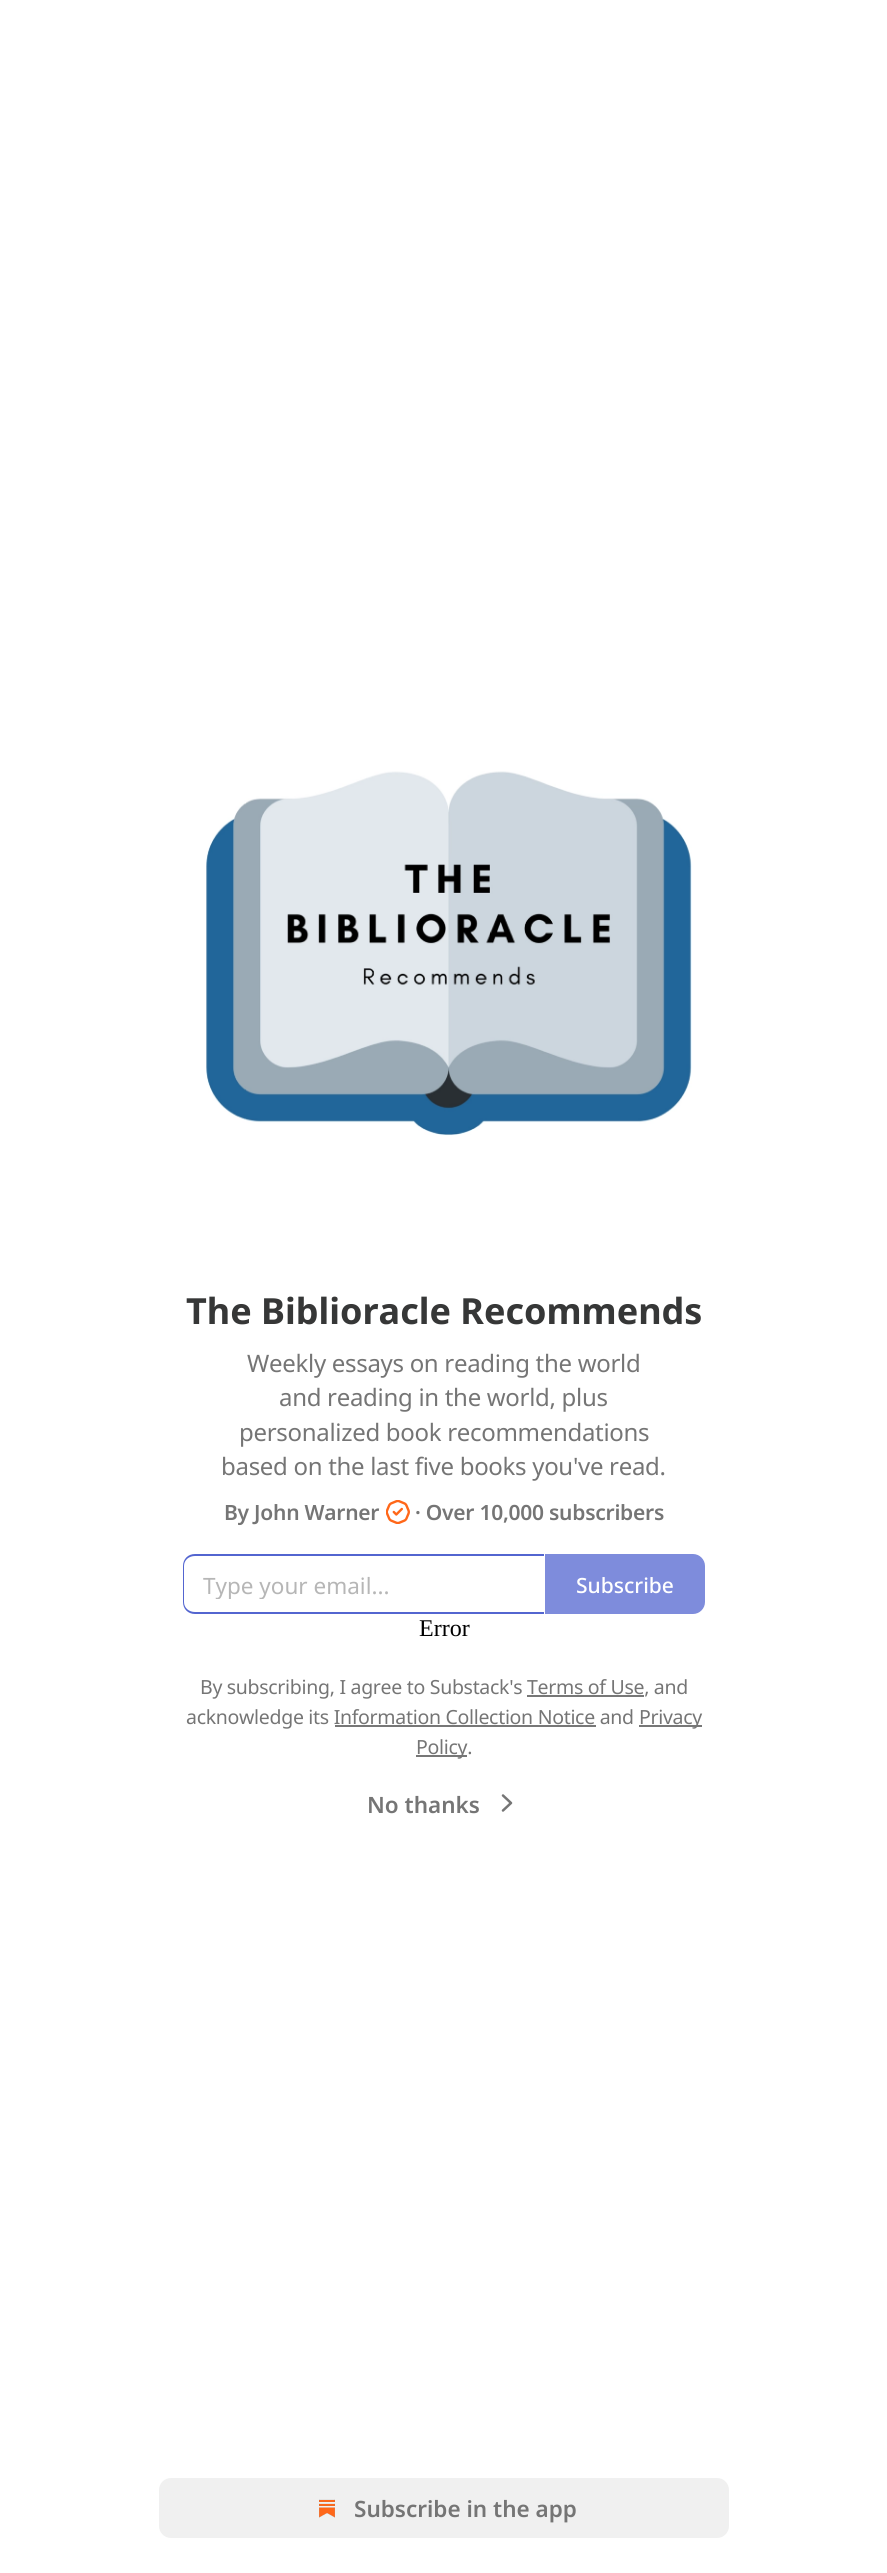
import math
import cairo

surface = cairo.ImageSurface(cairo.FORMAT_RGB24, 887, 2573)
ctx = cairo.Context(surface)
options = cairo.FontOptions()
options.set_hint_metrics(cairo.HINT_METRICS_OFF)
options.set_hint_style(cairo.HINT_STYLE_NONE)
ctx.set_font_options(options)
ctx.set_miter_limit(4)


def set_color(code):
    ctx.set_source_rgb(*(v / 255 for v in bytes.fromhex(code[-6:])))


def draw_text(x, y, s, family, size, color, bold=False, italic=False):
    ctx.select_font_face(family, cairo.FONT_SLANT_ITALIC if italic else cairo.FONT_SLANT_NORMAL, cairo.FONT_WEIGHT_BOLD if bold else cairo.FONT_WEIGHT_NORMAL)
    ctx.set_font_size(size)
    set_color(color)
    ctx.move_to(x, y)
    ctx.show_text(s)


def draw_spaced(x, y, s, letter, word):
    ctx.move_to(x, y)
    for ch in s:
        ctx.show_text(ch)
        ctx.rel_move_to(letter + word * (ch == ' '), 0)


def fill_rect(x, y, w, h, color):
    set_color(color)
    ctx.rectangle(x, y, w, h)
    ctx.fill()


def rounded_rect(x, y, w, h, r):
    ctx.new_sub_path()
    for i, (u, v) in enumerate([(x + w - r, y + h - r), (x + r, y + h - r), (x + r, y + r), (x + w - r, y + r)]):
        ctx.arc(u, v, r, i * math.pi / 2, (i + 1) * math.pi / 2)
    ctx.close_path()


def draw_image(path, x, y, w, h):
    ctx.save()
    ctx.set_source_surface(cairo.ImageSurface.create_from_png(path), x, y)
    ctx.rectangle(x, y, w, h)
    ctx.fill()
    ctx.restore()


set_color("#ffffff")
ctx.paint()
draw_image("assets/img1.png", 206, 771, 486, 365)
draw_text(186, 1324, "The Biblioracle Recommends", "Noto Sans", 36, "#363737", bold=True)
ctx.select_font_face("Noto Sans")
ctx.set_font_size(24)
set_color("#757575")
draw_spaced(247, 1372, "Weekly essays on reading the world", -0.3, 0)
draw_spaced(279, 1406, "and reading in the world, plus", -0.3, 0)
draw_spaced(239, 1441, "personalized book recommendations", -0.3, 0)
draw_spaced(221, 1475, "based on the last five books you've read.", -0.3, 0)
ctx.select_font_face("Noto Sans SemiBold")
ctx.set_font_size(21)
draw_spaced(224, 1520, "By John Warner", -0.25, 0)
draw_image("assets/img2.png", 386, 1500, 24, 24)
draw_spaced(415, 1520, "· Over 10,000 subscribers", -0.25, 0)
set_color("#5365d0")
ctx.set_fill_rule(cairo.FILL_RULE_EVEN_ODD)
ctx.new_path()
ctx.move_to(195, 1554)
ctx.line_to(544, 1554)
ctx.line_to(544, 1614)
ctx.line_to(195, 1614)
ctx.curve_to(188, 1614, 183, 1609, 183, 1602)
ctx.line_to(183, 1566)
ctx.curve_to(183, 1559, 188, 1554, 195, 1554)
ctx.close_path()
ctx.move_to(195, 1556)
ctx.line_to(544, 1556)
ctx.line_to(544, 1612)
ctx.line_to(195, 1612)
ctx.curve_to(189, 1612, 184, 1608, 184, 1602)
ctx.line_to(184, 1566)
ctx.curve_to(184, 1560, 189, 1556, 195, 1556)
ctx.close_path()
ctx.fill()
ctx.save()
ctx.set_fill_rule(cairo.FILL_RULE_WINDING)
ctx.rectangle(203, 1569, 324, 30)
ctx.clip()
draw_text(203, 1594, "Type your email...", "Noto Sans", 22.5, "#b6b6b6")
ctx.restore()
set_color("#7e8cdc")
ctx.new_path()
ctx.move_to(546, 1555)
ctx.line_to(693, 1555)
ctx.curve_to(699, 1555, 704, 1560, 704, 1566)
ctx.line_to(704, 1602)
ctx.curve_to(704, 1608, 699, 1613, 693, 1613)
ctx.line_to(546, 1613)
ctx.close_path()
ctx.fill_preserve()
ctx.stroke()
draw_text(576, 1593, "Subscribe", "Noto Sans Medium", 21, "#ffffff")
draw_text(419, 1636, "Error", "Liberation Serif", 24, "#000000")
ctx.select_font_face("Noto Sans")
ctx.set_font_size(19.5)
set_color("#757575")
draw_spaced(200, 1694, "By subscribing, I agree to Substack's Terms of Use, and", -0.3, 0)
fill_rect(527, 1695, 117, 2, "#777777")
set_color("#757575")
draw_spaced(186, 1724, "acknowledge its Information Collection Notice and", -0.3, 0)
fill_rect(639, 1725, 63, 2, "#777777")
set_color("#757575")
draw_spaced(639, 1724, "Privacy", -0.3, 0)
fill_rect(335, 1725, 261, 2, "#777777")
fill_rect(416, 1755, 51, 2, "#777777")
set_color("#757575")
draw_spaced(416, 1754, "Policy.", -0.3, 0)
draw_text(367, 1813, "No thanks", "Noto Sans SemiBold", 22.5, "#757575")
ctx.new_path()
ctx.move_to(503, 1810.5)
ctx.line_to(511, 1803)
ctx.line_to(503, 1795.5)
ctx.set_line_width(2.5)
ctx.set_line_cap(cairo.LINE_CAP_ROUND)
ctx.set_line_join(cairo.LINE_JOIN_ROUND)
ctx.stroke()
set_color("#f0f0f0")
rounded_rect(159, 2478, 570, 60, 12)
ctx.fill()
draw_image("assets/img3.png", 319, 2499, 16, 19)
draw_text(354, 2517, "Subscribe in the app", "Noto Sans SemiBold", 22.5, "#757575")
surface.write_to_png("output.png")
